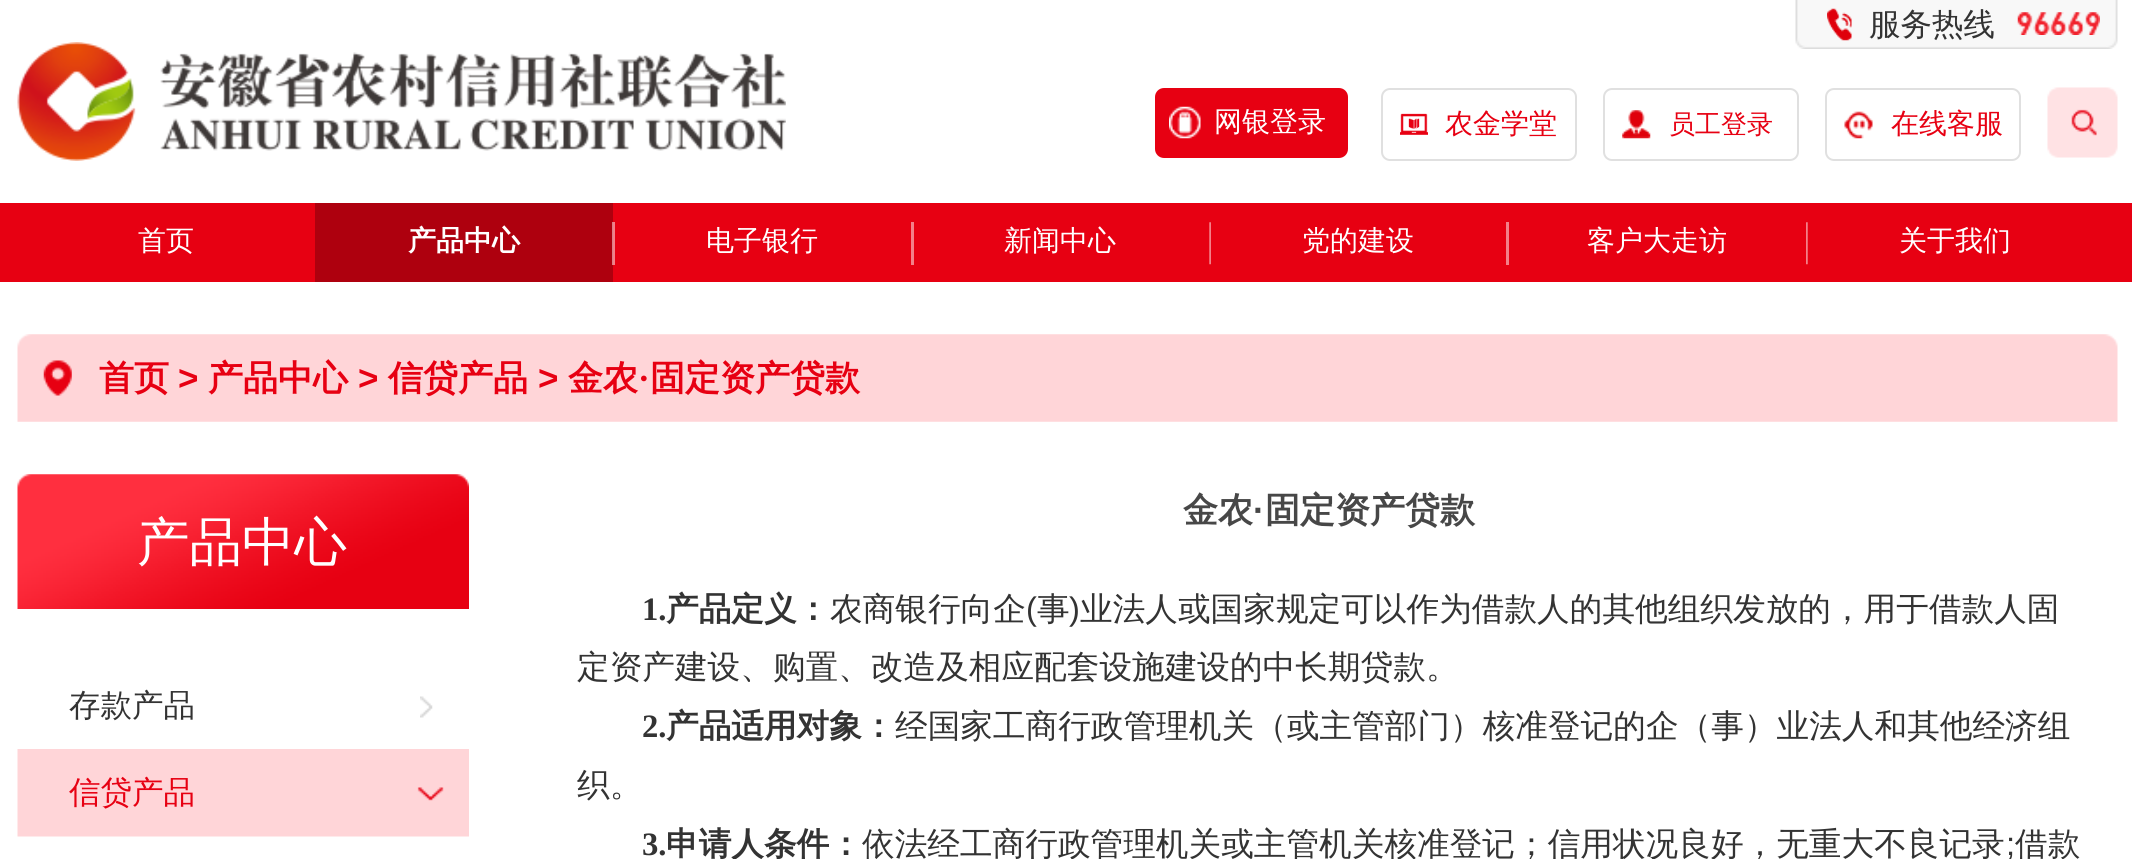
import math
import cairo

surface = cairo.ImageSurface(cairo.FORMAT_RGB24, 2132, 859)
ctx = cairo.Context(surface)
options = cairo.FontOptions()
options.set_hint_metrics(cairo.HINT_METRICS_OFF)
options.set_hint_style(cairo.HINT_STYLE_NONE)
ctx.set_font_options(options)
ctx.set_miter_limit(4)


def set_color(code):
    ctx.set_source_rgb(*(v / 255 for v in bytes.fromhex(code[-6:])))


def draw_text(x, y, s, family, size, color, bold=False, italic=False):
    ctx.select_font_face(family, cairo.FONT_SLANT_ITALIC if italic else cairo.FONT_SLANT_NORMAL, cairo.FONT_WEIGHT_BOLD if bold else cairo.FONT_WEIGHT_NORMAL)
    ctx.set_font_size(size)
    set_color(color)
    ctx.move_to(x, y)
    ctx.show_text(s)


def fill_rect(x, y, w, h, color):
    set_color(color)
    ctx.rectangle(x, y, w, h)
    ctx.fill()


def rounded_rect(x, y, w, h, r):
    ctx.new_sub_path()
    for i, (u, v) in enumerate([(x + w - r, y + h - r), (x + r, y + h - r), (x + r, y + r), (x + w - r, y + r)]):
        ctx.arc(u, v, r, i * math.pi / 2, (i + 1) * math.pi / 2)
    ctx.close_path()


def draw_image(path, x, y, w, h):
    ctx.save()
    ctx.set_source_surface(cairo.ImageSurface.create_from_png(path), x, y)
    ctx.rectangle(x, y, w, h)
    ctx.fill()
    ctx.restore()


set_color("#ffffff")
ctx.paint()
draw_image("assets/img1.png", 17, 42, 769, 119)
draw_image("assets/img2.png", 1795, 0, 323, 49)
draw_image("assets/img3.png", 1827, 8, 25, 33)
draw_text(1869, 35, "服务热线", "WenQuanYi Zen Hei Medium", 31.5, "#333333")
draw_image("assets/img4.png", 2017, 12, 83, 23)
set_color("#e70012")
rounded_rect(1155, 88, 193, 70, 9)
ctx.fill()
draw_image("assets/img5.png", 1169, 106, 32, 33)
draw_text(1214, 131, "网银登录", "WenQuanYi Zen Hei Medium", 28, "#ffffff")
rounded_rect(1382, 89, 194, 71, 8)
set_color("#e0e0e0")
ctx.stroke()
draw_image("assets/img6.png", 1400, 113, 28, 22)
draw_text(1445, 133, "农金学堂", "WenQuanYi Zen Hei Medium", 28, "#e70012")
rounded_rect(1604, 89, 194, 71, 8)
set_color("#e0e0e0")
ctx.stroke()
draw_image("assets/img7.png", 1622, 110, 29, 29)
draw_text(1669, 133, "员工登录", "WenQuanYi Zen Hei Medium", 26, "#e70012")
rounded_rect(1826, 89, 194, 71, 8)
set_color("#e0e0e0")
ctx.stroke()
draw_image("assets/img8.png", 1844, 111, 29, 28)
draw_text(1891, 133, "在线客服", "WenQuanYi Zen Hei Medium", 28, "#e70012")
draw_image("assets/img9.png", 2047, 87, 71, 71)
fill_rect(0, 203, 2132, 79, "#e70012")
fill_rect(613, 222, 2, 43, "#f38089")
draw_text(138, 250, "首页", "WenQuanYi Zen Hei Medium", 28, "#ffffff")
fill_rect(315, 203, 298, 79, "#ae000e")
fill_rect(612, 222, 1, 43, "#d78087")
draw_text(408, 250, "产品中心", "WenQuanYi Zen Hei", 28, "#ffffff", bold=True)
draw_text(706, 250, "电子银行", "WenQuanYi Zen Hei Medium", 28, "#ffffff")
fill_rect(911, 222, 3, 43, "#f38089")
draw_text(1004, 250, "新闻中心", "WenQuanYi Zen Hei Medium", 28, "#ffffff")
draw_image("assets/img10.png", 1209, 222, 2, 43)
draw_text(1302, 250, "党的建设", "WenQuanYi Zen Hei Medium", 28, "#ffffff")
fill_rect(1506, 222, 3, 43, "#f38089")
draw_text(1587, 250, "客户大走访", "WenQuanYi Zen Hei Medium", 28, "#ffffff")
draw_image("assets/img11.png", 1806, 222, 2, 43)
draw_text(1899, 250, "关于我们", "WenQuanYi Zen Hei Medium", 28, "#ffffff")
draw_image("assets/img12.png", 17, 334, 2101, 88)
draw_image("assets/img13.png", 43, 360, 29, 36)
draw_text(99, 390, "首页", "WenQuanYi Zen Hei", 35, "#e70012", bold=True)
draw_text(178, 390, ">", "Liberation Sans", 35, "#e70012", bold=True)
draw_text(208, 390, "产品中心", "WenQuanYi Zen Hei", 35, "#e70012", bold=True)
draw_text(358, 390, ">", "Liberation Sans", 35, "#e70012", bold=True)
draw_text(388, 390, "信贷产品", "WenQuanYi Zen Hei", 35, "#e70012", bold=True)
draw_text(538, 390, ">", "Liberation Sans", 35, "#e70012", bold=True)
draw_text(568, 390, "金农", "WenQuanYi Zen Hei", 35, "#e70012", bold=True)
draw_text(638, 390, "·", "Liberation Serif", 35, "#e70012", bold=True)
draw_text(650, 390, "固定资产贷款", "WenQuanYi Zen Hei", 35, "#e70012", bold=True)
draw_image("assets/img14.png", 17, 474, 452, 135)
draw_text(137, 560, "产品中心", "WenQuanYi Zen Hei Medium", 52.5, "#ffffff")
draw_image("assets/img15.png", 420, 696, 13, 22)
draw_text(69, 716, "存款产品", "WenQuanYi Zen Hei Medium", 31.5, "#333333")
draw_image("assets/img16.png", 17, 749, 452, 88)
draw_text(69, 803, "信贷产品", "WenQuanYi Zen Hei Medium", 31.5, "#e70012")
draw_text(1183, 522, "金农", "WenQuanYi Zen Hei", 35, "#474747", bold=True)
draw_text(1253, 522, "·", "Liberation Sans", 35, "#474747", bold=True)
draw_text(1265, 522, "固定资产贷款", "WenQuanYi Zen Hei", 35, "#474747", bold=True)
draw_text(642, 620, "1.", "Liberation Serif", 32.65, "#333333", bold=True)
draw_text(666, 620, "产品定义：", "WenQuanYi Zen Hei", 32.65, "#333333", bold=True)
draw_text(830, 620, "农商银行向企", "WenQuanYi Zen Hei Medium", 32.65, "#333333")
draw_text(1026, 620, "(", "Liberation Sans", 32.65, "#333333")
draw_text(1037, 620, "事", "WenQuanYi Zen Hei Medium", 32.65, "#333333")
draw_text(1069, 620, ")", "Liberation Sans", 32.65, "#333333")
draw_text(1080, 620, "业法人或国家规定可以作为借款人的其他组织发放的，用于借款人固", "WenQuanYi Zen Hei Medium", 32.65, "#333333")
draw_text(577, 678, "定资产建设、购置、改造及相应配套设施建设的中长期贷款。", "WenQuanYi Zen Hei Medium", 32.65, "#333333")
draw_text(642, 737, "2.", "Liberation Serif", 32.65, "#333333", bold=True)
draw_text(666, 737, "产品适用对象：", "WenQuanYi Zen Hei", 32.65, "#333333", bold=True)
draw_text(895, 737, "经国家工商行政管理机关（或主管部门）核准登记的企（事）业法人和其他经济组", "WenQuanYi Zen Hei Medium", 32.65, "#333333")
draw_text(577, 796, "织。", "WenQuanYi Zen Hei Medium", 32.65, "#333333")
draw_text(642, 855, "3.", "Liberation Serif", 32.65, "#333333", bold=True)
draw_text(666, 855, "申请人条件：", "WenQuanYi Zen Hei", 32.65, "#333333", bold=True)
draw_text(862, 855, "依法经工商行政管理机关或主管机关核准登记；信用状况良好，无重大不良记录", "WenQuanYi Zen Hei Medium", 32.65, "#333333")
draw_text(2006, 855, ";", "Liberation Sans", 32.65, "#333333")
draw_text(2015, 855, "借款", "WenQuanYi Zen Hei Medium", 32.65, "#333333")
surface.write_to_png("output.png")
